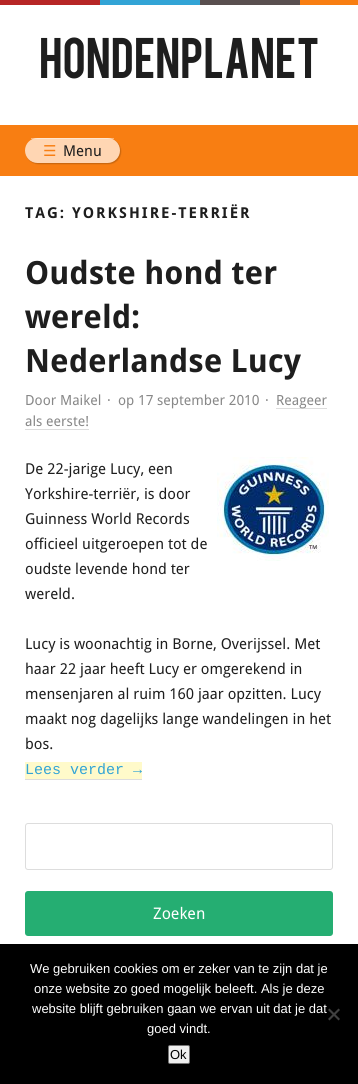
import math
import cairo

surface = cairo.ImageSurface(cairo.FORMAT_RGB24, 358, 1084)
ctx = cairo.Context(surface)
options = cairo.FontOptions()
options.set_hint_metrics(cairo.HINT_METRICS_OFF)
options.set_hint_style(cairo.HINT_STYLE_NONE)
ctx.set_font_options(options)
ctx.set_miter_limit(4)


def set_color(code):
    ctx.set_source_rgb(*(v / 255 for v in bytes.fromhex(code[-6:])))


def draw_text(x, y, s, family, size, color, bold=False, italic=False):
    ctx.select_font_face(family, cairo.FONT_SLANT_ITALIC if italic else cairo.FONT_SLANT_NORMAL, cairo.FONT_WEIGHT_BOLD if bold else cairo.FONT_WEIGHT_NORMAL)
    ctx.set_font_size(size)
    set_color(color)
    ctx.move_to(x, y)
    ctx.show_text(s)


def draw_spaced(x, y, s, letter, word):
    ctx.move_to(x, y)
    for ch in s:
        ctx.show_text(ch)
        ctx.rel_move_to(letter + word * (ch == ' '), 0)


def fill_rect(x, y, w, h, color):
    set_color(color)
    ctx.rectangle(x, y, w, h)
    ctx.fill()


def rounded_rect(x, y, w, h, r):
    ctx.new_sub_path()
    for i, (u, v) in enumerate([(x + w - r, y + h - r), (x + r, y + h - r), (x + r, y + r), (x + w - r, y + r)]):
        ctx.arc(u, v, r, i * math.pi / 2, (i + 1) * math.pi / 2)
    ctx.close_path()


def draw_shadow(x, y, w, h, r, blur, alpha):
    ctx.push_group_with_content(cairo.CONTENT_ALPHA)
    ctx.set_operator(cairo.OPERATOR_SOURCE)
    for i in range(15, -16, -2):
        e = blur * i / 6
        if min(w, h) + 2 * e > 0:
            ctx.set_source_rgba(0, 0, 0, alpha * math.erfc((i - 1) / 8.5) / 2)
            rounded_rect(x - e, y - e, w + 2 * e, h + 2 * e, max(0, min(r + e + blur * .6, min(w, h) / 2 + e)))
            ctx.fill()
    ctx.mask(ctx.pop_group())


def draw_image(path, x, y, w, h):
    ctx.save()
    ctx.set_source_surface(cairo.ImageSurface.create_from_png(path), x, y)
    ctx.rectangle(x, y, w, h)
    ctx.fill()
    ctx.restore()


set_color("#ffffff")
ctx.paint()
draw_image("assets/img1.png", 0, 0, 358, 5)
draw_text(39, 78, "Hondenplanet", "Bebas", 45, "#1e1e1e")
fill_rect(0, 125, 358, 51, "#f87e12")
set_color("#000000")
draw_shadow(26, 139, 95, 25, 12.5, 0.5, 0.2)
set_color("#ffd6b3")
rounded_rect(25, 138, 95, 25, 12.5)
ctx.fill()
ctx.set_source_rgba(1, 1, 1, 0.4)
ctx.rectangle(31, 138, 83, 1)
ctx.fill()
draw_text(43, 156, "☰", "DejaVu Sans", 15, "#f87e12")
draw_text(63, 156, "Menu", "Droid Sans", 15, "#1e1e1e")
ctx.select_font_face("Droid Sans", cairo.FONT_SLANT_NORMAL, cairo.FONT_WEIGHT_BOLD)
draw_spaced(25, 218, "TAG: YORKSHIRE-TERRIËR", 2, 0)
draw_text(25, 284, "Oudste hond ter", "Droid Sans", 32, "#1e1e1e", bold=True)
draw_text(25, 328, "wereld:", "Droid Sans", 32, "#1e1e1e", bold=True)
draw_text(25, 372, "Nederlandse Lucy", "Droid Sans", 32, "#1e1e1e", bold=True)
draw_text(25, 405, "Door Maikel", "Droid Sans", 14, "#888888")
draw_text(107, 405, "·", "Droid Sans", 14, "#888888")
draw_text(118, 405, "op 17 september 2010", "Droid Sans", 14, "#888888")
draw_text(265, 405, "·", "Droid Sans", 14, "#888888")
fill_rect(276, 408, 51, 1, "#dddddd")
draw_text(276, 405, "Reageer", "Droid Sans", 14, "#888888")
draw_text(25, 426, "als eerste!", "Droid Sans", 14, "#888888")
fill_rect(25, 429, 64, 1, "#dddddd")
draw_text(25, 474, "De 22-jarige Lucy, een", "Droid Sans", 15, "#1e1e1e")
draw_image("assets/img2.png", 217, 457, 112, 104)
draw_text(25, 499, "Yorkshire-terriër, is door", "Droid Sans", 15, "#1e1e1e")
draw_text(25, 524, "Guinness World Records", "Droid Sans", 15, "#1e1e1e")
draw_text(25, 549, "officieel uitgeroepen tot de", "Droid Sans", 15, "#1e1e1e")
draw_text(25, 574, "oudste levende hond ter", "Droid Sans", 15, "#1e1e1e")
draw_text(25, 599, "wereld.", "Droid Sans", 15, "#1e1e1e")
draw_text(25, 649, "Lucy is woonachtig in Borne, Overijssel. Met", "Droid Sans", 15, "#1e1e1e")
draw_text(25, 674, "haar 22 jaar heeft Lucy er omgerekend in", "Droid Sans", 15, "#1e1e1e")
draw_text(25, 699, "mensenjaren al ruim 160 jaar opzitten. Lucy", "Droid Sans", 15, "#1e1e1e")
draw_text(25, 724, "maakt nog dagelijks lange wandelingen in het", "Droid Sans", 15, "#1e1e1e")
draw_text(25, 749, "bos.", "Droid Sans", 15, "#1e1e1e")
fill_rect(25, 762, 117, 17, "#fffaca")
draw_text(25, 774, "Lees verder →", "Liberation Mono", 15, "#32a4d6")
fill_rect(25, 779, 117, 1, "#dddddd")
rounded_rect(25.5, 823.5, 307, 46, 2.5)
ctx.set_line_width(1)
ctx.stroke()
set_color("#25ae72")
rounded_rect(25, 891, 308, 45, 3)
ctx.fill()
draw_text(153, 919, "Zoeken", "Droid Sans", 16, "#ffffff")
fill_rect(0, 944, 358, 140, "#000000")
draw_text(30, 973, "We gebruiken cookies om er zeker van te zijn dat je", "Liberation Sans", 13, "#ffffff")
draw_text(34, 993, "onze website zo goed mogelijk beleeft. Als je deze", "Liberation Sans", 13, "#ffffff")
draw_text(32, 1013, "website blijft gebruiken gaan we ervan uit dat je dat", "Liberation Sans", 13, "#ffffff")
draw_text(147, 1033, "goed vindt.", "Liberation Sans", 13, "#ffffff")
set_color("#404040")
ctx.new_path()
ctx.move_to(338.5, 1008.5)
ctx.line_to(340, 1010)
ctx.line_to(329.5, 1020.5)
ctx.line_to(328, 1019)
ctx.close_path()
ctx.fill()
ctx.new_path()
ctx.move_to(328, 1010)
ctx.line_to(329.5, 1008.5)
ctx.line_to(340, 1019)
ctx.line_to(338.5, 1020.5)
ctx.close_path()
ctx.fill()
set_color("#efefef")
rounded_rect(168.5, 1045.5, 21, 18, 1.5)
ctx.fill_preserve()
set_color("#767676")
ctx.stroke()
draw_text(170, 1059, "Ok", "Liberation Sans", 13, "#000000")
surface.write_to_png("output.png")
